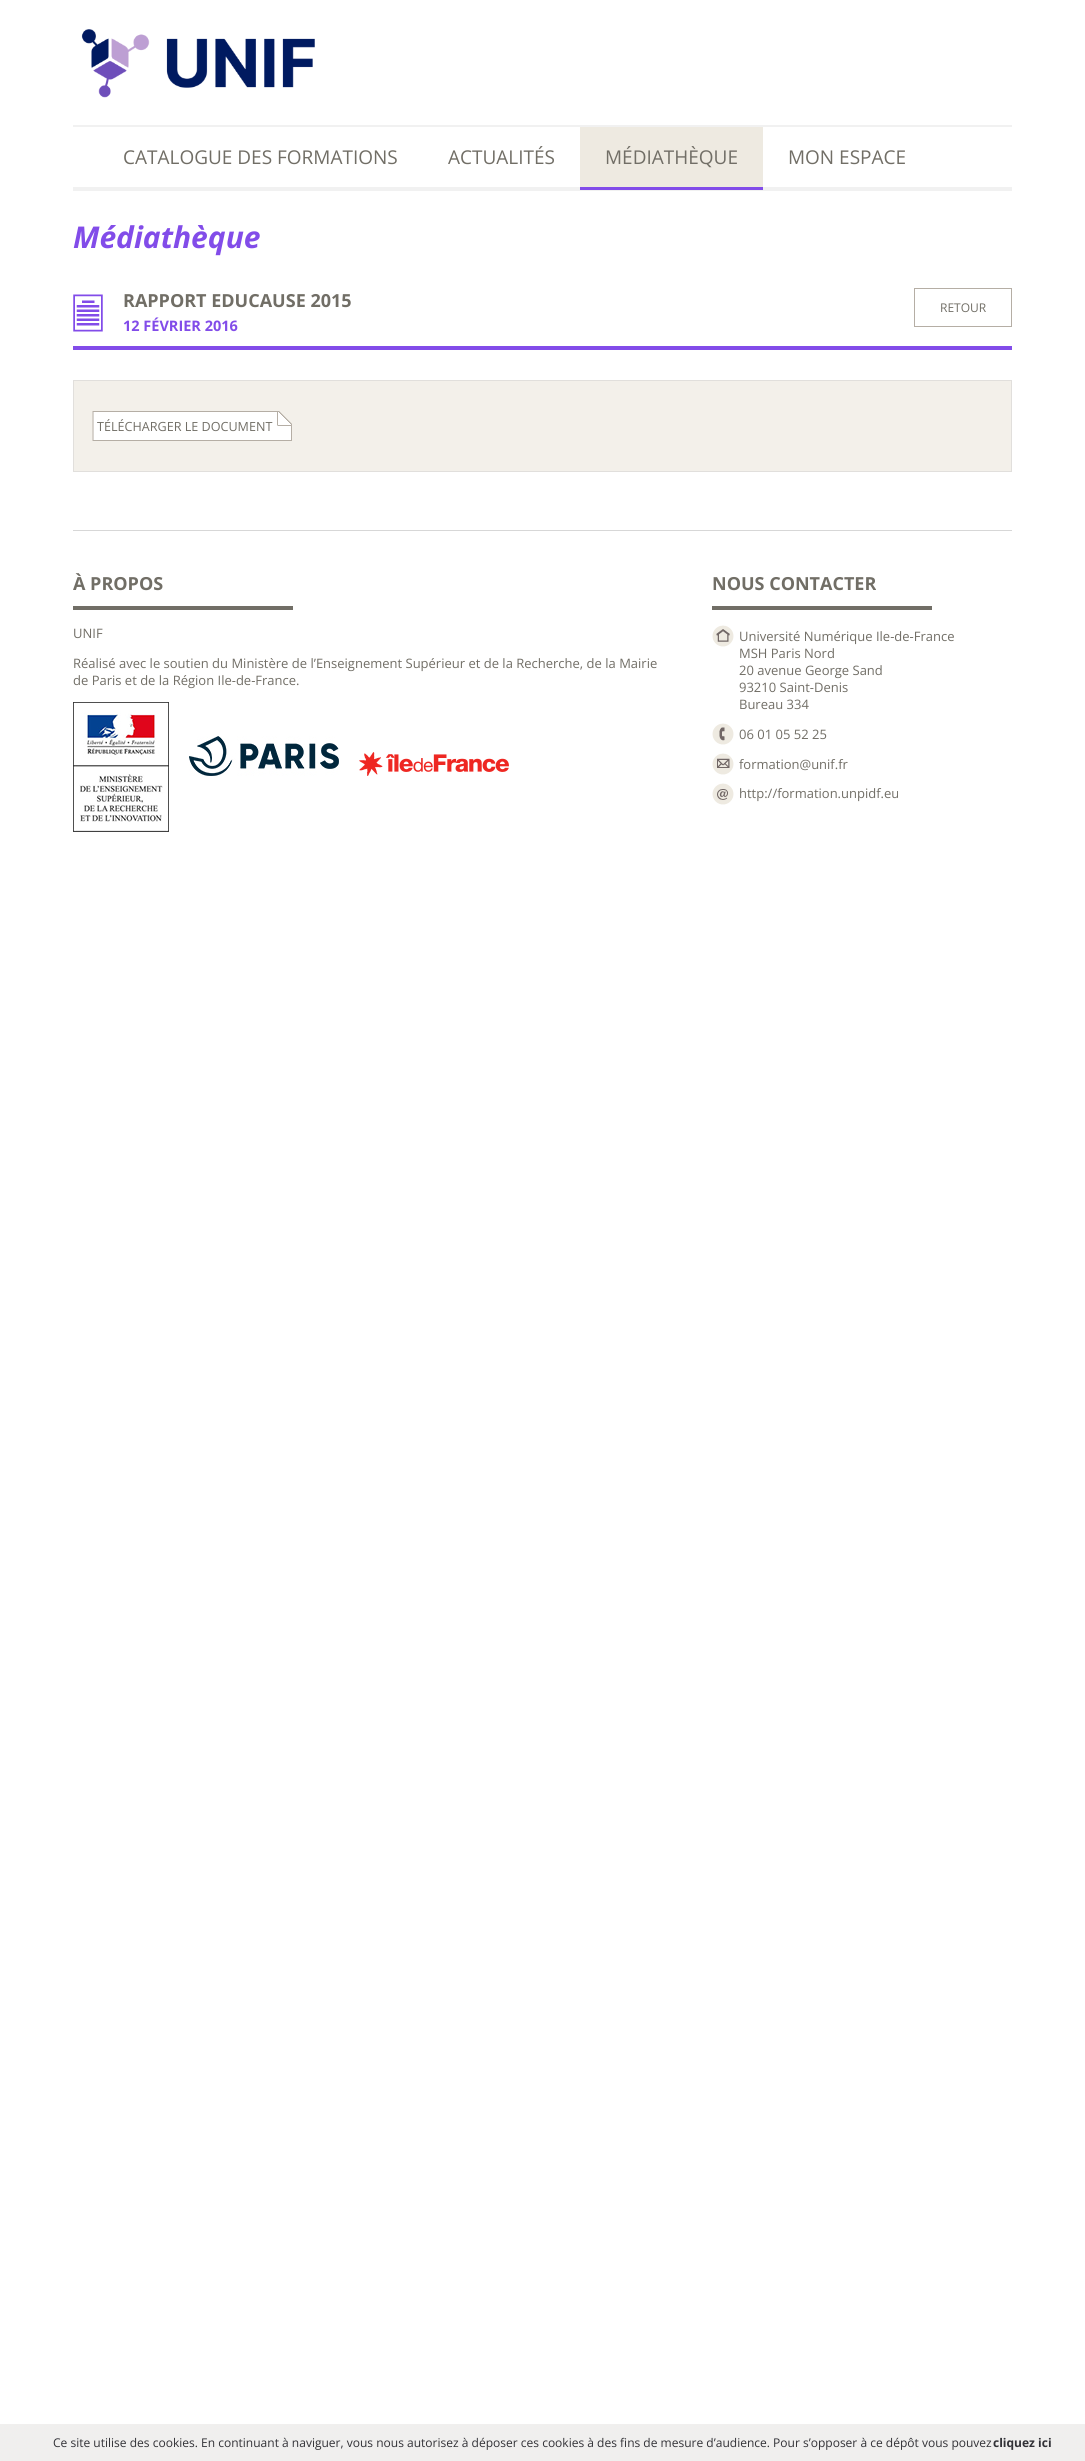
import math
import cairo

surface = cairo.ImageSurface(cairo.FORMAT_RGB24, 1085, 2461)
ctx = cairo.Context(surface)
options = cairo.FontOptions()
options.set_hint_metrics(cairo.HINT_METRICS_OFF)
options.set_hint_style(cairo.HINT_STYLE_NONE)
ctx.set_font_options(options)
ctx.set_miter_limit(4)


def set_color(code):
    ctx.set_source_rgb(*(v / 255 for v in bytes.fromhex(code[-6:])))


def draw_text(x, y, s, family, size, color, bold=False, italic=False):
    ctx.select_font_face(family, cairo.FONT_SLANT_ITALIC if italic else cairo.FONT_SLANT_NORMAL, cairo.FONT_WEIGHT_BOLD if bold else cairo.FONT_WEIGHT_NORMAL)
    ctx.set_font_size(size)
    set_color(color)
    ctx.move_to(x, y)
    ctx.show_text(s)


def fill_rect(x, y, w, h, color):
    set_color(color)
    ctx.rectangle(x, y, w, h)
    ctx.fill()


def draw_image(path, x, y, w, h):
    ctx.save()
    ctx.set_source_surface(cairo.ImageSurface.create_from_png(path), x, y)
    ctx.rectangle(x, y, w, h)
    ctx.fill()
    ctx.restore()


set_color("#ffffff")
ctx.paint()
draw_image("assets/img1.png", 81, 29, 234, 69)
fill_rect(73, 125, 939, 2, "#f1f1f1")
fill_rect(73, 187, 939, 4, "#f1f1f1")
draw_text(123, 164, "CATALOGUE DES FORMATIONS", "Open Sans", 19, "#716e66")
draw_text(448, 164, "ACTUALITÉS", "Open Sans", 19, "#716e66")
fill_rect(580, 127, 183, 60, "#eeeae1")
draw_text(605, 164, "MÉDIATHÈQUE", "Open Sans", 19, "#716e66")
fill_rect(580, 187, 183, 3, "#824ce9")
draw_text(788, 164, "MON ESPACE", "Open Sans", 19, "#716e66")
draw_text(73, 248, "Médiathèque", "Open Sans", 30, "#824ce9", bold=True, italic=True)
draw_image("assets/img2.png", 73, 294, 30, 38)
draw_text(123, 307, "RAPPORT EDUCAUSE 2015", "Open Sans", 18, "#716e66", bold=True)
draw_text(123, 331, "12 FÉVRIER 2016", "Open Sans", 14.5, "#824ce9", bold=True)
fill_rect(73, 346, 939, 4, "#824ce9")
ctx.rectangle(914.5, 288.5, 97, 38)
set_color("#b5aea5")
ctx.set_line_width(1)
ctx.stroke()
draw_text(940, 312, "RETOUR", "Open Sans", 12.02, "#716e66")
set_color("#f3f0ea")
ctx.rectangle(73.5, 380.5, 938, 91)
ctx.fill_preserve()
set_color("#e1dfdc")
ctx.stroke()
draw_image("assets/img3.png", 92, 411, 200, 30)
draw_text(97, 431, "TÉLÉCHARGER LE DOCUMENT", "Open Sans", 12.6, "#716e66")
fill_rect(73, 530, 939, 1, "#d7d7d7")
draw_text(73, 590, "À PROPOS", "Open Sans", 18, "#716e66", bold=True)
fill_rect(73, 606, 220, 4, "#716e66")
draw_text(73, 638, "UNIF", "Open Sans", 13, "#716e66")
draw_text(73, 668, "Réalisé avec le soutien du Ministère de l’Enseignement Supérieur et de la Recherche, de la Mairie", "Open Sans", 13, "#716e66")
draw_text(73, 685, "de Paris et de la Région Ile-de-France.", "Open Sans", 13, "#716e66")
draw_image("assets/img4.png", 73, 702, 96, 130)
draw_image("assets/img5.png", 189, 736, 150, 40)
draw_image("assets/img6.png", 359, 752, 150, 24)
draw_text(712, 590, "NOUS CONTACTER", "Open Sans", 18, "#716e66", bold=True)
fill_rect(712, 606, 220, 4, "#716e66")
draw_image("assets/img7.png", 712, 625, 22, 22)
draw_text(739, 641, "Université Numérique Ile-de-France", "Open Sans", 13, "#716e66")
draw_text(739, 658, "MSH Paris Nord", "Open Sans", 13, "#716e66")
draw_text(739, 675, "20 avenue George Sand", "Open Sans", 13, "#716e66")
draw_text(739, 692, "93210 Saint-Denis", "Open Sans", 13, "#716e66")
draw_text(739, 709, "Bureau 334", "Open Sans", 13, "#716e66")
draw_image("assets/img8.png", 712, 723, 22, 22)
draw_text(739, 739, "06 01 05 52 25", "Open Sans", 13, "#716e66")
draw_image("assets/img9.png", 712, 753, 22, 22)
draw_text(739, 769, "formation@unif.fr", "Open Sans", 13, "#716e66")
draw_image("assets/img10.png", 712, 783, 22, 22)
draw_text(739, 798, "http://formation.unpidf.eu", "Open Sans", 13, "#716e66")
fill_rect(0, 2424, 1085, 37, "#f0efee")
draw_text(53, 2447, "Ce site utilise des cookies. En continuant à naviguer, vous nous autorisez à déposer ces cookies à des fins de mesure d’audience. Pour s’opposer à ce dépôt vous pouvez", "Open Sans", 12.02, "#323237")
draw_text(993, 2447, "cliquez ici", "Open Sans", 12.02, "#323237", bold=True)
surface.write_to_png("output.png")
